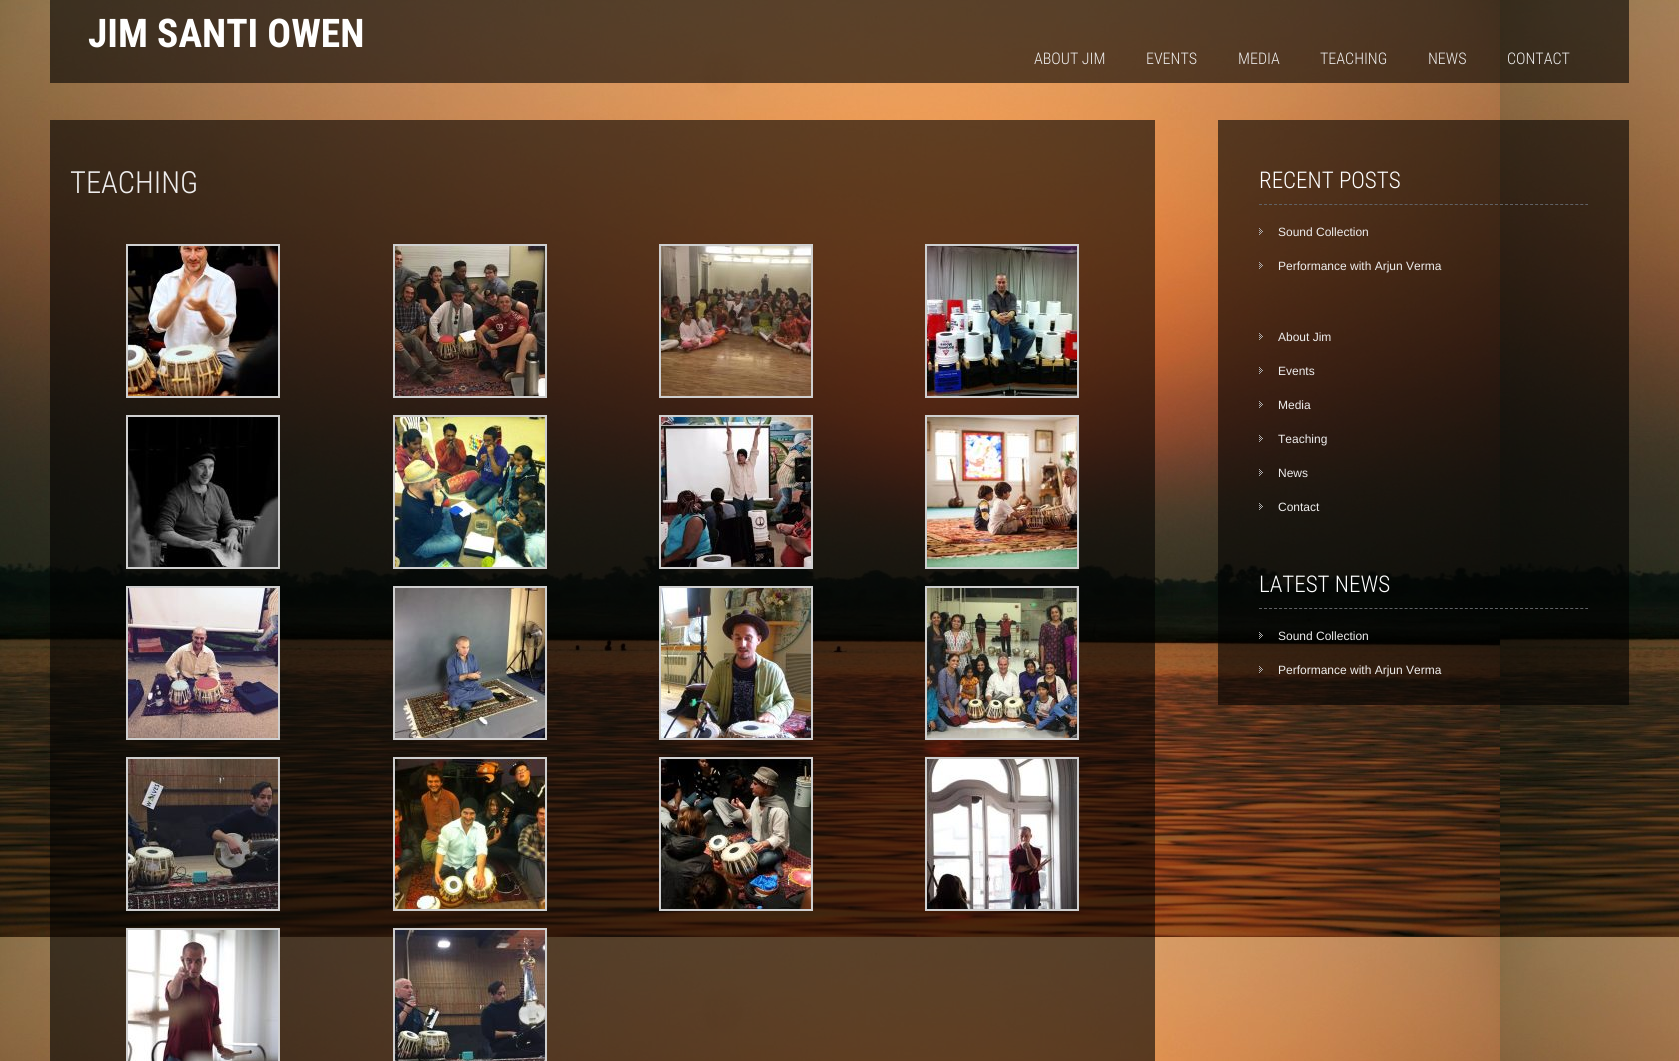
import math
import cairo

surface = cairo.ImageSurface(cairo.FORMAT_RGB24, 1679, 1061)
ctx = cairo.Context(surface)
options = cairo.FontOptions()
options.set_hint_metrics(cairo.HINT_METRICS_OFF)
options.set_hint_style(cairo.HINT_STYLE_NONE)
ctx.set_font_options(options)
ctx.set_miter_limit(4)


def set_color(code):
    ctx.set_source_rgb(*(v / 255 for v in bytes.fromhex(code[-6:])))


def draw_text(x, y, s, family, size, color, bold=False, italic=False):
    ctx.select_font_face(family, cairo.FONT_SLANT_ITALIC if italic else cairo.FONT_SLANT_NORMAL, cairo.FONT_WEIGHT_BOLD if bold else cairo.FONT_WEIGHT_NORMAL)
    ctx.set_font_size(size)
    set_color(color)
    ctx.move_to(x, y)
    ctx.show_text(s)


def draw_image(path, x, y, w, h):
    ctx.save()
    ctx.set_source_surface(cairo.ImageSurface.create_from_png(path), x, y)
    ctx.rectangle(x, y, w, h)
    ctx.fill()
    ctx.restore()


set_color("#ffffff")
ctx.paint()
draw_image("assets/img1.png", 0, 0, 1679, 1061)
ctx.set_source_rgba(0, 0, 0, 0.6)
ctx.rectangle(50, 0, 1579, 83)
ctx.fill()
draw_text(88, 47, "JIM SANTI OWEN", "Roboto Condensed", 39.5, "#ffffff", bold=True)
draw_text(1034, 64, "ABOUT JIM", "Roboto Condensed Light", 16, "#eeeded")
draw_text(1146, 64, "EVENTS", "Roboto Condensed Light", 16, "#eeeded")
draw_text(1238, 64, "MEDIA", "Roboto Condensed Light", 16, "#eeeded")
draw_text(1320, 64, "TEACHING", "Roboto Condensed Light", 16, "#eeeded")
draw_text(1428, 64, "NEWS", "Roboto Condensed Light", 16, "#eeeded")
draw_text(1507, 64, "CONTACT", "Roboto Condensed Light", 16, "#eeeded")
ctx.set_source_rgba(0, 0, 0, 0.6)
ctx.rectangle(50, 120, 1105, 941)
ctx.fill()
draw_text(70, 193, "TEACHING", "Roboto Condensed Light", 30.5, "#eeeded")
ctx.rectangle(127, 245, 152, 152)
set_color("#cfcfcf")
ctx.stroke()
draw_image("assets/img2.png", 128, 246, 150, 150)
ctx.rectangle(394, 245, 152, 152)
ctx.stroke()
draw_image("assets/img3.png", 395, 246, 150, 150)
ctx.rectangle(660, 245, 152, 152)
ctx.stroke()
draw_image("assets/img4.png", 661, 246, 150, 150)
ctx.rectangle(926, 245, 152, 152)
ctx.stroke()
draw_image("assets/img5.png", 927, 246, 150, 150)
ctx.rectangle(127, 416, 152, 152)
ctx.stroke()
draw_image("assets/img6.png", 128, 417, 150, 150)
ctx.rectangle(394, 416, 152, 152)
ctx.stroke()
draw_image("assets/img7.png", 395, 417, 150, 150)
ctx.rectangle(660, 416, 152, 152)
ctx.stroke()
draw_image("assets/img8.png", 661, 417, 150, 150)
ctx.rectangle(926, 416, 152, 152)
ctx.stroke()
draw_image("assets/img9.png", 927, 417, 150, 150)
ctx.rectangle(127, 587, 152, 152)
ctx.stroke()
draw_image("assets/img10.png", 128, 588, 150, 150)
ctx.rectangle(394, 587, 152, 152)
ctx.stroke()
draw_image("assets/img11.png", 395, 588, 150, 150)
ctx.rectangle(660, 587, 152, 152)
ctx.stroke()
draw_image("assets/img12.png", 661, 588, 150, 150)
ctx.rectangle(926, 587, 152, 152)
ctx.stroke()
draw_image("assets/img13.png", 927, 588, 150, 150)
ctx.rectangle(127, 758, 152, 152)
ctx.stroke()
draw_image("assets/img14.png", 128, 759, 150, 150)
ctx.rectangle(394, 758, 152, 152)
ctx.stroke()
draw_image("assets/img15.png", 395, 759, 150, 150)
ctx.rectangle(660, 758, 152, 152)
ctx.stroke()
draw_image("assets/img16.png", 661, 759, 150, 150)
ctx.rectangle(926, 758, 152, 152)
ctx.stroke()
draw_image("assets/img17.png", 927, 759, 150, 150)
ctx.rectangle(127, 929, 152, 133)
ctx.stroke()
draw_image("assets/img18.png", 128, 930, 150, 131)
ctx.rectangle(394, 929, 152, 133)
ctx.stroke()
draw_image("assets/img19.png", 395, 930, 150, 131)
ctx.set_source_rgba(0, 0, 0, 0.6)
ctx.rectangle(1218, 120, 411, 585)
ctx.fill()
ctx.new_path()
ctx.move_to(1259, 204.5)
ctx.line_to(1588, 204.5)
set_color("#606266")
ctx.set_line_width(1)
ctx.set_dash([3, 2.02])
ctx.stroke()
draw_text(1259, 188, "RECENT POSTS", "Roboto Condensed Light", 23, "#ffffff")
draw_image("assets/img20.png", 1259, 228, 4, 7)
draw_text(1278, 236, "Sound Collection", "Liberation Sans", 12, "#eeeded")
draw_image("assets/img21.png", 1259, 262, 4, 7)
draw_text(1278, 270, "Performance with Arjun Verma", "Liberation Sans", 12, "#eeeded")
draw_image("assets/img22.png", 1259, 333, 4, 7)
draw_text(1278, 341, "About Jim", "Liberation Sans", 12, "#eeeded")
draw_image("assets/img23.png", 1259, 367, 4, 7)
draw_text(1278, 375, "Events", "Liberation Sans", 12, "#eeeded")
draw_image("assets/img24.png", 1259, 401, 4, 7)
draw_text(1278, 409, "Media", "Liberation Sans", 12, "#eeeded")
draw_image("assets/img25.png", 1259, 435, 4, 7)
draw_text(1278, 443, "Teaching", "Liberation Sans", 12, "#eeeded")
draw_image("assets/img26.png", 1259, 469, 4, 7)
draw_text(1278, 477, "News", "Liberation Sans", 12, "#eeeded")
draw_image("assets/img27.png", 1259, 503, 4, 7)
draw_text(1278, 511, "Contact", "Liberation Sans", 12, "#eeeded")
ctx.new_path()
ctx.move_to(1259, 608.5)
ctx.line_to(1588, 608.5)
set_color("#606266")
ctx.stroke()
draw_text(1259, 592, "LATEST NEWS", "Roboto Condensed Light", 23, "#ffffff")
draw_image("assets/img28.png", 1259, 632, 4, 7)
draw_text(1278, 640, "Sound Collection", "Liberation Sans", 12, "#eeeded")
draw_image("assets/img29.png", 1259, 666, 4, 7)
draw_text(1278, 674, "Performance with Arjun Verma", "Liberation Sans", 12, "#eeeded")
surface.write_to_png("output.png")
